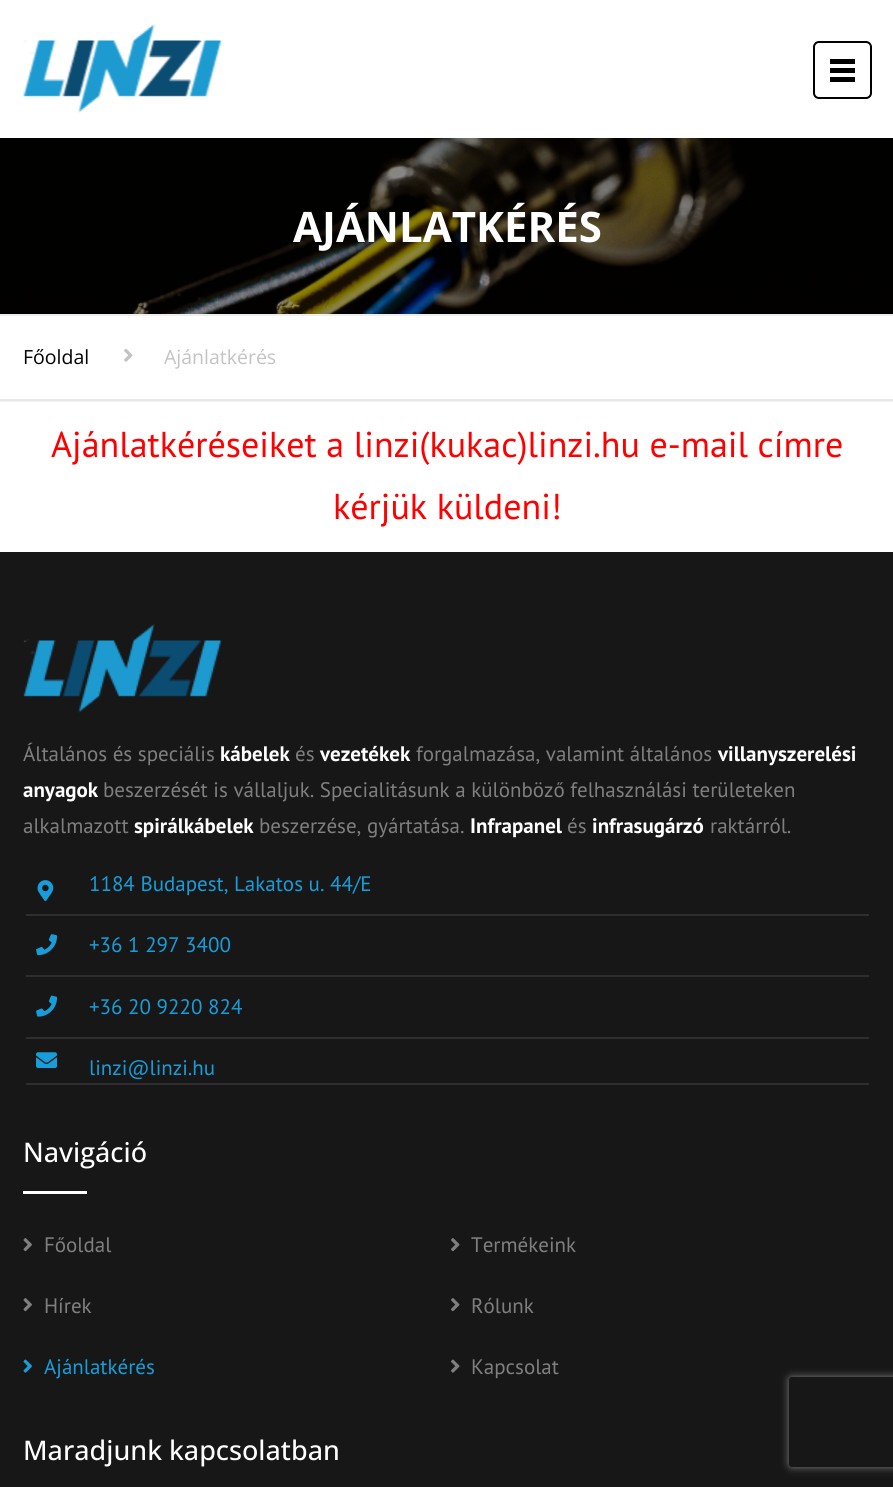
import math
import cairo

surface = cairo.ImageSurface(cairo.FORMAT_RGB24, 893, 1487)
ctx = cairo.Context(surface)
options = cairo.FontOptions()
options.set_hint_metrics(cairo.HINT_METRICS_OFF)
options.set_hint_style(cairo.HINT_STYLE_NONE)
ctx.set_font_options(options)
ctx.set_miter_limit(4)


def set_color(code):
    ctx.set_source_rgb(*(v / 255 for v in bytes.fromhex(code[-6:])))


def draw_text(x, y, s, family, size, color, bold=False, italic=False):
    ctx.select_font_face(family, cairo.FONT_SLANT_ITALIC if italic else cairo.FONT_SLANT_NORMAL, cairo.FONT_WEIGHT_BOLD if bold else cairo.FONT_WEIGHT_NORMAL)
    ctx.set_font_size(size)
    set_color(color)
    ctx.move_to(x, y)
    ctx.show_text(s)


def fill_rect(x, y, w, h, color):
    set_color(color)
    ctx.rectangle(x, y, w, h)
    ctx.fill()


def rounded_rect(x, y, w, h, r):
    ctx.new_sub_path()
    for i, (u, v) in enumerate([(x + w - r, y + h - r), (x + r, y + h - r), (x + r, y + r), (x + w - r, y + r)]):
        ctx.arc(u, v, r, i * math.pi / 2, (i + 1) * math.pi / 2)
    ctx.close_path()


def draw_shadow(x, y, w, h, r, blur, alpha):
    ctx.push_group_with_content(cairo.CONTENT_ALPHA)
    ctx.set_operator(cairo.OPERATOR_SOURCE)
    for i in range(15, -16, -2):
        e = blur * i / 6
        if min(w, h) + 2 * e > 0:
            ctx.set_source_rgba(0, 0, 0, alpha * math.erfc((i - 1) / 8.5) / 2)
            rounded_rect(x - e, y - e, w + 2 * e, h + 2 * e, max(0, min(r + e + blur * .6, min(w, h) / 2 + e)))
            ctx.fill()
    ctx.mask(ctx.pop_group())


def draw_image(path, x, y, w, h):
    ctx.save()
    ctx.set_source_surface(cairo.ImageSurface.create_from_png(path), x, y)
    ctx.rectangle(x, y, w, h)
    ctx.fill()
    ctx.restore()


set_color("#ffffff")
ctx.paint()
draw_image("assets/img1.png", 23, 24, 199, 89)
rounded_rect(814, 42, 57, 56, 5)
set_color("#000000")
ctx.stroke()
fill_rect(830, 59, 25, 5, "#000000")
fill_rect(830, 68, 25, 5, "#000000")
fill_rect(830, 77, 25, 5, "#000000")
ctx.save()
ctx.rectangle(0, 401, 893, 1)
ctx.clip()
set_color("#000000")
draw_shadow(0, 315, 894, 86, 0, 1, 0.14)
ctx.restore()
draw_image("assets/img2.png", 0, 138, 893, 176)
fill_rect(0, 314, 893, 2, "#eeeeee")
draw_text(293, 242, "AJÁNLATKÉRÉS", "Open Sans", 42, "#ffffff", bold=True)
fill_rect(0, 399, 893, 2, "#e7e7e7")
draw_text(23, 364, "Főoldal", "Open Sans", 19.5, "#000000")
draw_image("assets/img3.png", 124, 348, 9, 14)
draw_text(164, 364, "Ajánlatkérés", "Open Sans", 19.5, "#c3c3c3")
draw_text(51, 457, "Ajánlatkéréseiket a linzi(kukac)linzi.hu e-mail címre", "PT Sans", 36, "#ff0000")
draw_text(333, 519, "kérjük küldeni!", "PT Sans", 36, "#ff0000")
fill_rect(0, 552, 893, 935, "#171717")
draw_image("assets/img4.png", 23, 624, 199, 89)
draw_text(23, 761, "Általános és speciális", "PT Sans", 21, "#7f7f7f")
draw_text(220, 761, "kábelek", "PT Sans", 21, "#ffffff", bold=True)
draw_text(295, 761, "és", "PT Sans", 21, "#7f7f7f")
draw_text(320, 761, "vezetékek", "PT Sans", 21, "#ffffff", bold=True)
draw_text(416, 761, "forgalmazása, valamint általános", "PT Sans", 21, "#7f7f7f")
draw_text(718, 761, "villanyszerelési", "PT Sans", 21, "#ffffff", bold=True)
draw_text(23, 797, "anyagok", "PT Sans", 21, "#ffffff", bold=True)
draw_text(103, 797, "beszerzését is vállaljuk. Specialitásunk a különböző felhasználási területeken", "PT Sans", 21, "#7f7f7f")
draw_text(23, 833, "alkalmazott", "PT Sans", 21, "#7f7f7f")
draw_text(134, 833, "spirálkábelek", "PT Sans", 21, "#ffffff", bold=True)
draw_text(259, 833, "beszerzése, gyártatása.", "PT Sans", 21, "#7f7f7f")
draw_text(470, 833, "Infrapanel", "PT Sans", 21, "#ffffff", bold=True)
draw_text(567, 833, "és", "PT Sans", 21, "#7f7f7f")
draw_text(592, 833, "infrasugárzó", "PT Sans", 21, "#ffffff", bold=True)
draw_text(710, 833, "raktárról.", "PT Sans", 21, "#7f7f7f")
fill_rect(26, 914, 843, 2, "#2e2e2e")
draw_image("assets/img5.png", 37, 880, 17, 22)
draw_text(89, 891, "1184 Budapest, Lakatos u. 44/E", "PT Sans", 21, "#179dd9")
fill_rect(26, 975, 843, 2, "#2e2e2e")
draw_image("assets/img6.png", 36, 934, 21, 22)
draw_text(89, 952, "+36 1 297 3400", "PT Sans", 21, "#179dd9")
fill_rect(26, 1037, 843, 2, "#2e2e2e")
draw_image("assets/img7.png", 36, 995, 21, 22)
draw_text(89, 1014, "+36 20 9220 824", "PT Sans", 21, "#179dd9")
fill_rect(26, 1083, 843, 2, "#2e2e2e")
draw_image("assets/img8.png", 36, 1052, 21, 16)
draw_text(89, 1075, "linzi@linzi.hu", "PT Sans", 21, "#179dd9")
draw_text(23, 1162, "Navigáció", "Open Sans Medium", 27, "#ffffff")
fill_rect(23, 1191, 64, 3, "#ffffff")
draw_image("assets/img9.png", 23, 1238, 9, 14)
draw_text(44, 1252, "Főoldal", "PT Sans", 21, "#7f7f7f")
draw_image("assets/img10.png", 451, 1238, 9, 14)
draw_text(471, 1252, "Termékeink", "PT Sans", 21, "#7f7f7f")
draw_image("assets/img9.png", 23, 1298, 9, 14)
draw_text(44, 1313, "Hírek", "PT Sans", 21, "#7f7f7f")
draw_image("assets/img10.png", 451, 1298, 9, 14)
draw_text(471, 1313, "Rólunk", "PT Sans", 21, "#7f7f7f")
draw_image("assets/img11.png", 23, 1359, 9, 14)
draw_text(44, 1374, "Ajánlatkérés", "PT Sans", 21, "#179dd9")
draw_image("assets/img12.png", 451, 1359, 9, 14)
draw_text(471, 1374, "Kapcsolat", "PT Sans", 21, "#7f7f7f")
draw_text(23, 1460, "Maradjunk kapcsolatban", "Open Sans Medium", 27, "#ffffff")
ctx.save()
ctx.set_fill_rule(cairo.FILL_RULE_EVEN_ODD)
ctx.new_path()
ctx.move_to(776, 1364)
ctx.line_to(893, 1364)
ctx.line_to(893, 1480)
ctx.line_to(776, 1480)
ctx.close_path()
ctx.move_to(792, 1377)
ctx.line_to(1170, 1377)
ctx.curve_to(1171.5, 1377, 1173, 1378.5, 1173, 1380)
ctx.line_to(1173, 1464)
ctx.curve_to(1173, 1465.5, 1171.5, 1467, 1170, 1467)
ctx.line_to(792, 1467)
ctx.curve_to(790.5, 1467, 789, 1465.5, 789, 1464)
ctx.line_to(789, 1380)
ctx.curve_to(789, 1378.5, 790.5, 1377, 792, 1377)
ctx.close_path()
ctx.clip()
set_color("#808080")
draw_shadow(789, 1377, 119, 90, 3, 4, 1)
ctx.restore()
surface.write_to_png("output.png")
